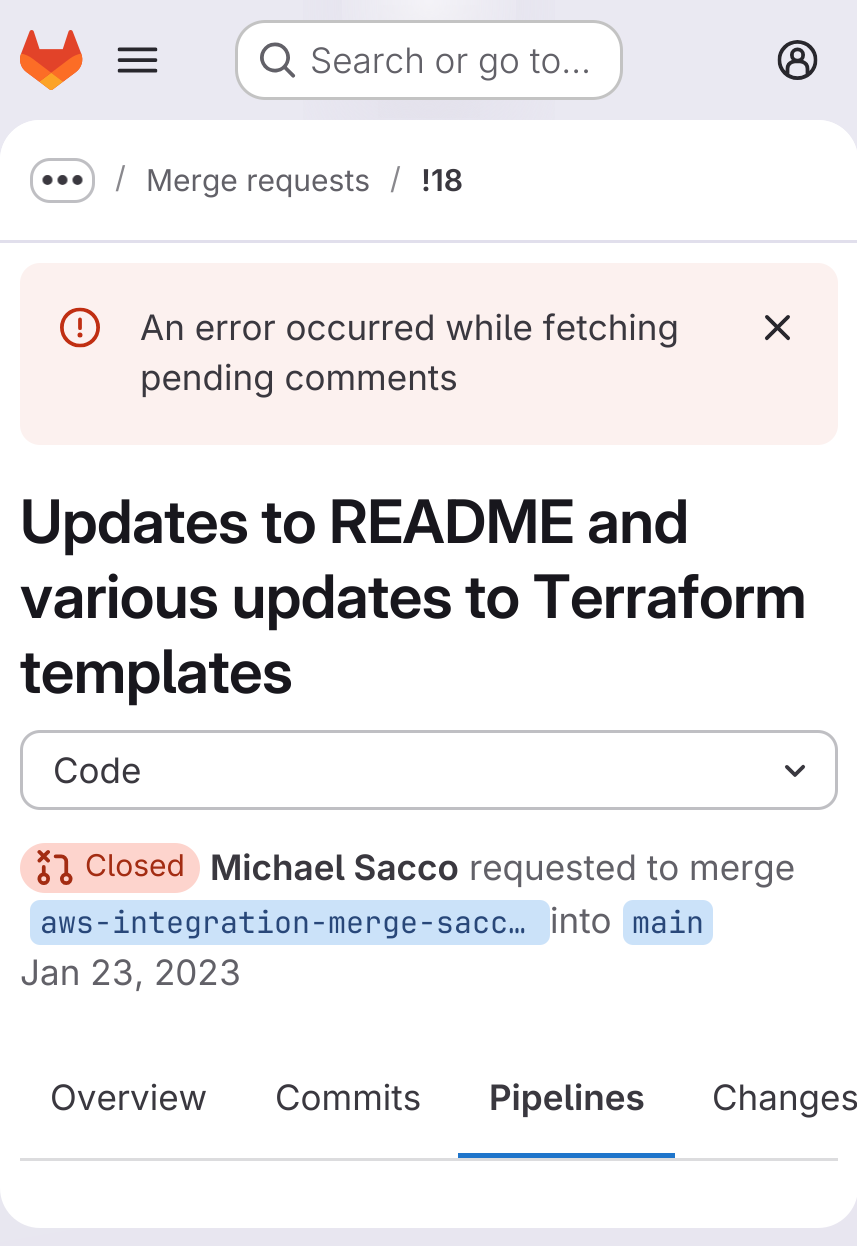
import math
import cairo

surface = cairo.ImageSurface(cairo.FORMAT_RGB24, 857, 1246)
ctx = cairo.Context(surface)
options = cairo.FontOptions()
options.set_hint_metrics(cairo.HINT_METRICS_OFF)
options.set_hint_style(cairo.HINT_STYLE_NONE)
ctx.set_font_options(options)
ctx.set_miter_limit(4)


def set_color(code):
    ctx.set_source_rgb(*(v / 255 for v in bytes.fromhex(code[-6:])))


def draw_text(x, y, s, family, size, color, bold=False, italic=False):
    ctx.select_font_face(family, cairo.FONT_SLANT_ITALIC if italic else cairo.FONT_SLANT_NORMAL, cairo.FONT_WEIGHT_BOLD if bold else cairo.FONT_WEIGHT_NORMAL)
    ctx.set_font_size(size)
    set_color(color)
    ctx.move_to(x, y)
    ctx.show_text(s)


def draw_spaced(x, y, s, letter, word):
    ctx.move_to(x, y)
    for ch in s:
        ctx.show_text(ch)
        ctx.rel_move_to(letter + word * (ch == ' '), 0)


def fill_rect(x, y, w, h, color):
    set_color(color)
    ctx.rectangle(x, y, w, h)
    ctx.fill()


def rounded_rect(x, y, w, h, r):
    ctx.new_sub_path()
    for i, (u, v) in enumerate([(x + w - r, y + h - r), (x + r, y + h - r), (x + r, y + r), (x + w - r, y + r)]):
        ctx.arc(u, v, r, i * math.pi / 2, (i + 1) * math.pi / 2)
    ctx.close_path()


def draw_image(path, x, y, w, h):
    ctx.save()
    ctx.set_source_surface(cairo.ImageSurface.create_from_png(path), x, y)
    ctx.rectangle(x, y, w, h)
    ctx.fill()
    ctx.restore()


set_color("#ffffff")
ctx.paint()
gradient = cairo.LinearGradient(548, 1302, 309, -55)
gradient.add_color_stop_rgba(0, 0.91, 0.902, 0.941, 1)
gradient.add_color_stop_rgba(0.7, 0.918, 0.914, 0.949, 1)
ctx.set_source(gradient)
ctx.rectangle(0, 0, 857, 1246)
ctx.fill()
gradient = cairo.RadialGradient(0, 0, 0, 0, 0, 1)
gradient.set_matrix(cairo.Matrix(1 / 429, 0, 0, 1 / 1248, -1 * 429 / 429, -1 * 0 / 1248))
gradient.add_color_stop_rgba(0, 0.894, 0.886, 0.929, 1)
gradient.add_color_stop_rgba(0.41, 0.894, 0.886, 0.929, 0)
ctx.set_source(gradient)
ctx.rectangle(303, 0, 252, 120)
ctx.fill()
gradient = cairo.RadialGradient(0, 0, 0, 0, 0, 1)
gradient.set_matrix(cairo.Matrix(1 / 429, 0, 0, 1 / 1248, -1 * 429 / 429, -1 * 0 / 1248))
gradient.add_color_stop_rgba(0, 0.894, 0.886, 0.925, 1)
gradient.add_color_stop_rgba(0.29, 0.894, 0.886, 0.925, 0)
ctx.set_source(gradient)
ctx.rectangle(378, 5, 102, 113)
ctx.fill()
gradient = cairo.RadialGradient(429, 0, 0, 429, 0, 1319)
gradient.add_color_stop_rgba(0, 1, 1, 1, 0.6)
gradient.add_color_stop_rgba(0.08, 1, 1, 1, 0)
ctx.set_source(gradient)
ctx.rectangle(342, 0, 174, 90)
ctx.fill()
draw_image("assets/img1.png", 20, 30, 63, 60)
draw_image("assets/img2.png", 117, 47, 41, 26)
set_color("#ffffff")
rounded_rect(235, 20, 388, 80, 30)
ctx.fill()
rounded_rect(236.5, 21.5, 385, 77, 28.5)
ctx.set_source_rgba(0.02, 0.02, 0.024, 0.24)
ctx.set_line_width(3)
ctx.stroke()
draw_image("assets/img3.png", 260, 42, 36, 36)
draw_text(310, 73, "Search or go to…", "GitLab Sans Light", 35, "#626168")
draw_image("assets/img4.png", 777, 40, 41, 40)
set_color("#ffffff")
rounded_rect(0, 120, 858, 1108, 40)
ctx.fill()
ctx.new_path()
ctx.move_to(40, 120)
ctx.line_to(818, 120)
ctx.curve_to(840, 120, 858, 138, 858, 160)
ctx.line_to(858, 243)
ctx.line_to(0, 243)
ctx.line_to(0, 160)
ctx.curve_to(0, 138, 18, 120, 40, 120)
ctx.close_path()
ctx.fill()
fill_rect(0, 240, 857, 3, "#e1dfec")
rounded_rect(31.5, 159.5, 62, 42, 18.5)
set_color("#bfbfc3")
ctx.stroke()
draw_image("assets/img5.png", 42, 175, 41, 10)
draw_text(115, 188, "/", "GitLab Sans", 30, "#89888d")
draw_text(146, 191, "Merge requests", "GitLab Sans", 30, "#626168")
draw_text(390, 189, "/", "GitLab Sans", 30, "#89888d")
draw_text(421, 191, "!18", "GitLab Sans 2 SemiBold", 30, "#3a383f")
set_color("#fcf1ef")
rounded_rect(20, 263, 818, 182, 20)
ctx.fill()
draw_image("assets/img6.png", 60, 307, 40, 41)
draw_text(140, 340, "An error occurred while fetching", "GitLab Sans", 35, "#3a383f")
draw_text(140, 390, "pending comments", "GitLab Sans", 35, "#3a383f")
draw_image("assets/img7.png", 764, 315, 26, 26)
ctx.select_font_face("GitLab Sans SemiBold")
ctx.set_font_size(60)
set_color("#18171d")
draw_spaced(20, 543, "Updates to README and", -0.6, 0)
draw_spaced(20, 618, "various updates to Terraform", -0.6, 0)
draw_spaced(20, 693, "templates", -0.6, 0)
rounded_rect(21.5, 731.5, 815, 77, 18.5)
set_color("#bfbfc3")
ctx.stroke()
draw_text(53, 783, "Code", "GitLab Sans", 35, "#3a383f")
draw_image("assets/img8.png", 784, 764, 22, 13)
fill_rect(20, 1158, 818, 3, "#dcdcde")
set_color("#fdd4cd")
rounded_rect(20, 843, 180, 50, 25)
ctx.fill()
draw_image("assets/img9.png", 37, 850, 36, 35)
draw_text(85, 876, "Closed", "GitLab Sans", 30, "#a32c12")
draw_text(210, 880, "Michael Sacco", "GitLab Sans 2 SemiBold", 35, "#3a383f")
draw_text(469, 880, "requested to merge", "GitLab Sans", 35, "#626168")
set_color("#cbe2f9")
rounded_rect(30, 900, 520, 45, 10)
ctx.fill()
draw_text(40, 933, "aws-integration-merge-sacc…", "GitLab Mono", 30, "#284779")
draw_text(550, 933, "into", "GitLab Sans", 35, "#626168")
set_color("#cbe2f9")
rounded_rect(623, 900, 90, 45, 10)
ctx.fill()
draw_text(632, 933, "main", "GitLab Mono", 30, "#284779")
draw_text(20, 985, "Jan 23, 2023", "GitLab Sans", 35, "#626168")
draw_text(50, 1110, "Overview", "GitLab Sans", 35, "#3a383f")
draw_text(275, 1110, "Commits", "GitLab Sans", 35, "#3a383f")
fill_rect(458, 1153, 217, 5, "#1f75cb")
draw_text(489, 1110, "Pipelines", "GitLab Sans 2 SemiBold", 35, "#3a383f")
draw_text(712, 1110, "Changes", "GitLab Sans", 35, "#3a383f")
surface.write_to_png("output.png")
